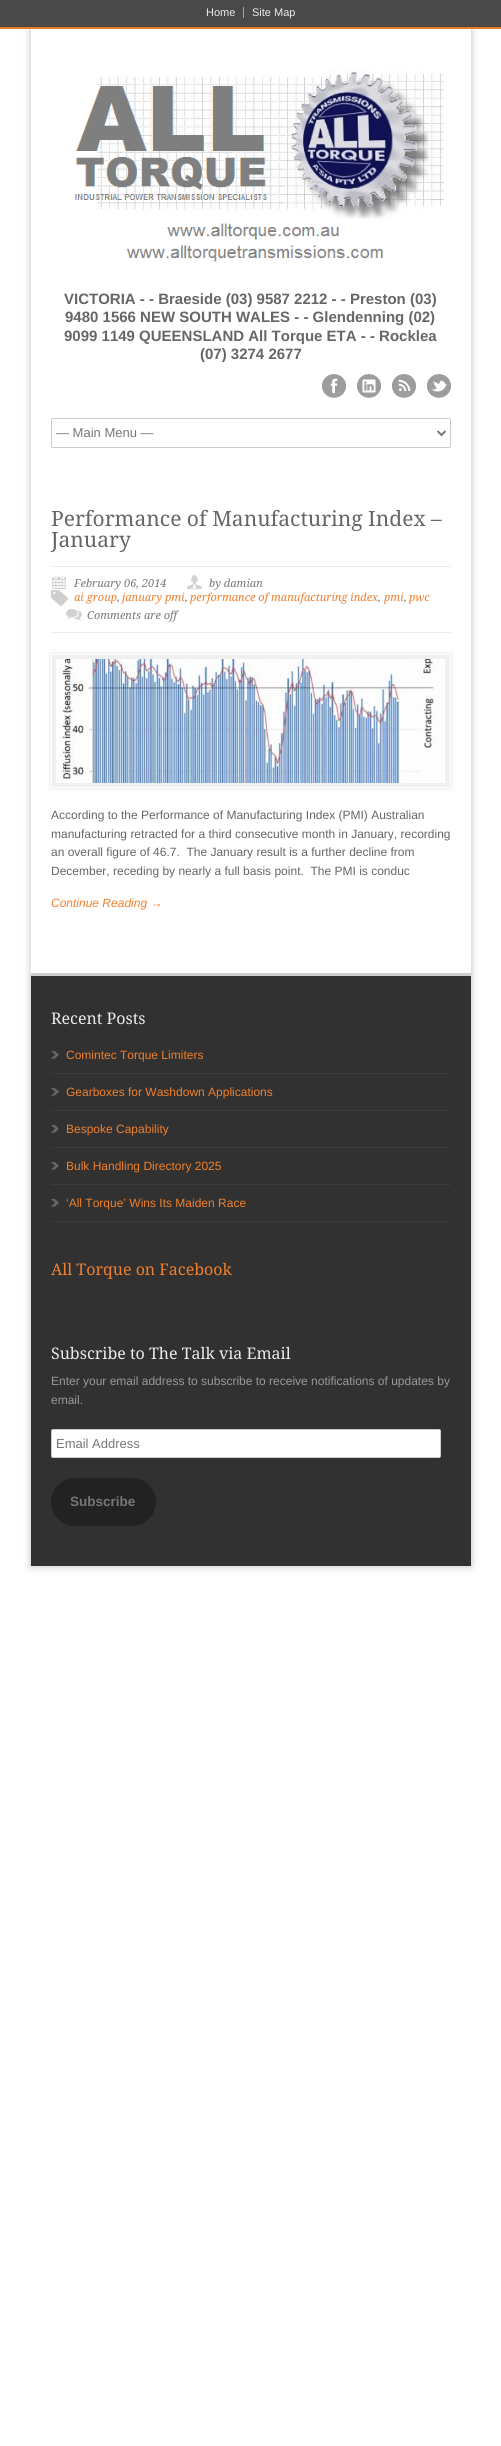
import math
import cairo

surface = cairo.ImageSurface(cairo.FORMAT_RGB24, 501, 2446)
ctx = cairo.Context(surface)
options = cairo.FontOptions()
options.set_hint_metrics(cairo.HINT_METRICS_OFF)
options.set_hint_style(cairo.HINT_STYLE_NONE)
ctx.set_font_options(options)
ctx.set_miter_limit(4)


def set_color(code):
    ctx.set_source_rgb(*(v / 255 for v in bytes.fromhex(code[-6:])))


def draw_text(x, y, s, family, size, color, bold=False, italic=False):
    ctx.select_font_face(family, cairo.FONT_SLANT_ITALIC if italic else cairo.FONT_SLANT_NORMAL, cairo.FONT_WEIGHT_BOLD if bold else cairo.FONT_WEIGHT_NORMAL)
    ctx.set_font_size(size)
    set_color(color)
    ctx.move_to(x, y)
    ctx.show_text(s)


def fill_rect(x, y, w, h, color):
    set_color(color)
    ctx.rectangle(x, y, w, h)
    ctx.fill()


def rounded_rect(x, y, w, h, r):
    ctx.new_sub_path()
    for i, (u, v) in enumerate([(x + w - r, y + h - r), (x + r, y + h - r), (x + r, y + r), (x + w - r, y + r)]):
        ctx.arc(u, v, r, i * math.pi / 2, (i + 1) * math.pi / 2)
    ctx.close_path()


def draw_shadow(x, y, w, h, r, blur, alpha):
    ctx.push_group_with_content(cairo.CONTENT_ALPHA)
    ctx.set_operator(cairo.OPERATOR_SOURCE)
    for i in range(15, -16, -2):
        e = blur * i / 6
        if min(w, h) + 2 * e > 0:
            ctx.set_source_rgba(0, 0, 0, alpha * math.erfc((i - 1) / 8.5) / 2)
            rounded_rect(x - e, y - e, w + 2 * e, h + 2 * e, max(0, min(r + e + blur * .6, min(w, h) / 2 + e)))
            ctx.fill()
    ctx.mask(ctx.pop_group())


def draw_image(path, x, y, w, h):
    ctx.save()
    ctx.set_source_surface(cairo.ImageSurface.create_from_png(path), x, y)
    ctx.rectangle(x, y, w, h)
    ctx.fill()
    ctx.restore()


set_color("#ffffff")
ctx.paint()
ctx.save()
ctx.set_fill_rule(cairo.FILL_RULE_EVEN_ODD)
ctx.new_path()
ctx.move_to(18, 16)
ctx.line_to(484, 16)
ctx.line_to(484, 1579)
ctx.line_to(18, 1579)
ctx.close_path()
ctx.move_to(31, 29)
ctx.line_to(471, 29)
ctx.line_to(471, 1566)
ctx.line_to(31, 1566)
ctx.close_path()
ctx.clip()
set_color("#bbbbbb")
draw_shadow(31, 29, 440, 1537, 0, 4, 1)
ctx.restore()
fill_rect(0, 0, 501, 27, "#494949")
fill_rect(243, 7, 1, 11, "#a2a2a2")
draw_text(206, 16, "Home", "Liberation Sans", 11, "#ececec")
draw_text(252, 16, "Site Map", "Liberation Sans", 11, "#ececec")
fill_rect(0, 27, 501, 2, "#e77927")
draw_image("assets/img1.png", 74, 69, 370, 193)
draw_text(64, 304, "VICTORIA - - Braeside (03) 9587 2212 - - Preston (03)", "Liberation Sans", 15, "#666666", bold=True)
draw_text(65, 322, "9480 1566 NEW SOUTH WALES - - Glendenning (02)", "Liberation Sans", 15, "#666666", bold=True)
draw_text(64, 341, "9099 1149 QUEENSLAND All Torque ETA - - Rocklea", "Liberation Sans", 15, "#666666", bold=True)
draw_text(200, 359, "(07) 3274 2677", "Liberation Sans", 15, "#666666", bold=True)
draw_image("assets/img2.png", 322, 374, 24, 24)
draw_image("assets/img3.png", 357, 374, 24, 24)
draw_image("assets/img4.png", 392, 374, 24, 24)
draw_image("assets/img5.png", 427, 374, 24, 24)
rounded_rect(51.5, 418.5, 399, 29, 1.5)
set_color("#cccccc")
ctx.set_line_width(1)
ctx.stroke()
ctx.new_path()
ctx.move_to(437.5, 431)
ctx.line_to(441.5, 435)
ctx.line_to(445.5, 431)
set_color("#777777")
ctx.set_line_width(2)
ctx.stroke()
draw_text(56, 437, "— Main Menu —", "Liberation Sans", 13, "#777777")
draw_text(51, 526, "Performance of Manufacturing Index –", "Droid Serif", 21, "#666666")
draw_text(51, 547, "January", "Droid Serif", 21, "#666666")
fill_rect(51, 566, 400, 1, "#ececec")
fill_rect(51, 632, 400, 1, "#ececec")
draw_image("assets/img6.png", 52, 576, 14, 13)
draw_text(74, 587, "February 06, 2014", "Droid Serif", 11, "#777777", italic=True)
draw_image("assets/img7.png", 187, 575, 15, 15)
draw_text(209, 587, "by damian", "Droid Serif", 11, "#777777", italic=True)
draw_image("assets/img8.png", 51, 590, 17, 16)
draw_text(74, 601, "ai group", "Droid Serif", 11, "#ef7f2c", italic=True)
draw_text(117, 601, ",", "Droid Serif", 11, "#777777", italic=True)
draw_text(122, 601, "january pmi", "Droid Serif", 11, "#ef7f2c", italic=True)
draw_text(185, 601, ",", "Droid Serif", 11, "#777777", italic=True)
draw_text(190, 601, "performance of manufacturing index", "Droid Serif", 11, "#ef7f2c", italic=True)
draw_text(378, 601, ",", "Droid Serif", 11, "#777777", italic=True)
draw_text(384, 601, "pmi", "Droid Serif", 11, "#ef7f2c", italic=True)
draw_text(404, 601, ",", "Droid Serif", 11, "#777777", italic=True)
draw_text(409, 601, "pwc", "Droid Serif", 11, "#ef7f2c", italic=True)
draw_image("assets/img9.png", 66, 609, 16, 11)
draw_text(87, 619, "Comments are off", "Droid Serif", 11, "#777777", italic=True)
set_color("#ececec")
draw_shadow(50, 653, 402, 136, 0, 2, 1)
fill_rect(53, 656, 396, 130, "#f0f0f0")
ctx.rectangle(51.5, 654.5, 399, 133)
set_color("#ffffff")
ctx.set_line_width(1)
ctx.stroke()
draw_image("assets/img10.png", 56, 659, 389, 124)
draw_text(51, 819, "According to the Performance of Manufacturing Index (PMI) Australian", "Liberation Sans", 12, "#666666")
draw_text(51, 838, "manufacturing retracted for a third consecutive month in January, recording", "Liberation Sans", 12, "#666666")
draw_text(51, 856, "an overall figure of 46.7.  The January result is a further decline from", "Liberation Sans", 12, "#666666")
draw_text(51, 875, "December, receding by nearly a full basis point.  The PMI is conduc", "Liberation Sans", 12, "#666666")
draw_text(51, 907, "Continue Reading →", "Liberation Sans", 12, "#ef7f2c", italic=True)
fill_rect(31, 976, 440, 590, "#313131")
fill_rect(31, 973, 440, 3, "#cfcfcf")
draw_text(51, 1024, "Recent Posts", "Droid Serif", 16, "#ececec")
draw_image("assets/img11.png", 51, 1051, 8, 8)
fill_rect(51, 1073, 400, 1, "#3b3b3b")
draw_text(66, 1059, "Comintec Torque Limiters", "Liberation Sans", 12, "#ef7f2c")
draw_image("assets/img11.png", 51, 1088, 8, 8)
fill_rect(51, 1110, 400, 1, "#3b3b3b")
draw_text(66, 1096, "Gearboxes for Washdown Applications", "Liberation Sans", 12, "#ef7f2c")
draw_image("assets/img11.png", 51, 1125, 8, 8)
fill_rect(51, 1147, 400, 1, "#3b3b3b")
draw_text(66, 1133, "Bespoke Capability", "Liberation Sans", 12, "#ef7f2c")
draw_image("assets/img11.png", 51, 1162, 8, 8)
fill_rect(51, 1184, 400, 1, "#3b3b3b")
draw_text(66, 1170, "Bulk Handling Directory 2025", "Liberation Sans", 12, "#ef7f2c")
draw_image("assets/img11.png", 51, 1199, 8, 8)
fill_rect(51, 1221, 400, 1, "#3b3b3b")
draw_text(66, 1207, "‘All Torque’ Wins Its Maiden Race", "Liberation Sans", 12, "#ef7f2c")
draw_text(51, 1275, "All Torque on Facebook", "Droid Serif", 16, "#ef7f2c")
draw_text(51, 1359, "Subscribe to The Talk via Email", "Droid Serif", 16, "#ececec")
draw_text(51, 1385, "Enter your email address to subscribe to receive notifications of updates by", "Liberation Sans", 12, "#999999")
draw_text(51, 1404, "email.", "Liberation Sans", 12, "#999999")
set_color("#ffffff")
rounded_rect(51.5, 1429.5, 389, 28, 1.5)
ctx.fill_preserve()
set_color("#cccccc")
ctx.stroke()
draw_text(56, 1448, "Email Address", "Liberation Sans", 13, "#777777")
set_color("#222222")
rounded_rect(51, 1478, 105, 48, 24)
ctx.fill()
draw_text(70, 1506, "Subscribe", "Liberation Sans", 13.5, "#777777", bold=True)
surface.write_to_png("output.png")
